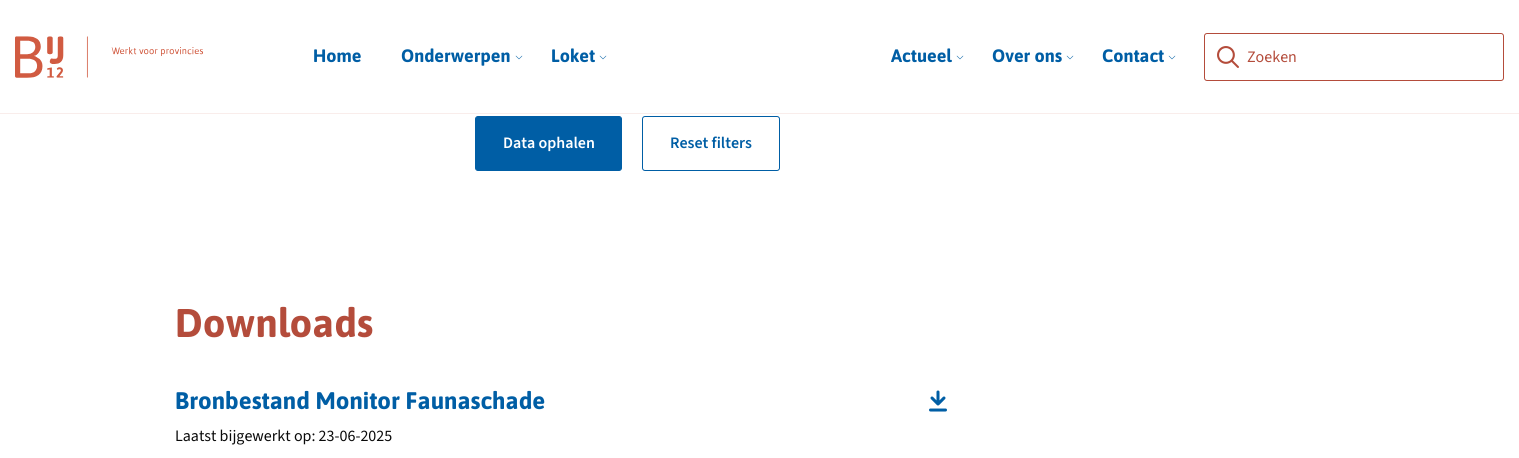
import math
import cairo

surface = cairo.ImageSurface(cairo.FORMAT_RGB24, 1519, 458)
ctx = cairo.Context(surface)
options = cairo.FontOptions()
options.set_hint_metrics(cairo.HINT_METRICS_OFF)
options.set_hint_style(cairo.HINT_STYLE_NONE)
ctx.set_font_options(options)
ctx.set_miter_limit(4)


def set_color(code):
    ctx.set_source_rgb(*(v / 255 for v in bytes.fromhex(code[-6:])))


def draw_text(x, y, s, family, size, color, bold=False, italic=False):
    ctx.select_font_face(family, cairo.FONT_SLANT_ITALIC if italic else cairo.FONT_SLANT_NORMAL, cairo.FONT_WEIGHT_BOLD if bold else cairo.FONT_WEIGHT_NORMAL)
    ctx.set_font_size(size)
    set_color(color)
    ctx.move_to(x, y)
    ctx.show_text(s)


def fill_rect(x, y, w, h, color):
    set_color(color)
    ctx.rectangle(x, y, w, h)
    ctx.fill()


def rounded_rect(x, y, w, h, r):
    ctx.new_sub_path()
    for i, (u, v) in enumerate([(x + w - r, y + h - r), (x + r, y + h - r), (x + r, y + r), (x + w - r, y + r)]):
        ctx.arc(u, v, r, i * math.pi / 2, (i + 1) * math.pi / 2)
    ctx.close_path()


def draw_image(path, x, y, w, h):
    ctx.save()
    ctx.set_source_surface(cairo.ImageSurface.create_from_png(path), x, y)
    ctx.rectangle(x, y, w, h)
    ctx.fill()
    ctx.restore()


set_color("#ffffff")
ctx.paint()
fill_rect(0, 113, 1519, 1, "#f9edeb")
draw_image("assets/img1.png", 15, 36, 188, 42)
draw_text(313, 62, "Home", "Asap", 18, "#005ea5", bold=True)
draw_text(401, 62, "Onderwerpen", "Asap", 18, "#005ea5", bold=True)
draw_image("assets/img2.png", 515, 55, 8, 5)
draw_text(551, 62, "Loket", "Asap", 18, "#005ea5", bold=True)
draw_image("assets/img2.png", 599, 55, 8, 5)
draw_text(891, 62, "Actueel", "Asap", 18, "#005ea5", bold=True)
draw_image("assets/img2.png", 956, 55, 8, 5)
draw_text(992, 62, "Over ons", "Asap", 18, "#005ea5", bold=True)
draw_image("assets/img2.png", 1066, 55, 8, 5)
draw_text(1102, 62, "Contact", "Asap", 18, "#005ea5", bold=True)
draw_image("assets/img2.png", 1168, 55, 8, 5)
draw_image("assets/img3.png", 1217, 46, 22, 22)
rounded_rect(1204.5, 33.5, 299, 47, 2.5)
set_color("#b44c3b")
ctx.set_line_width(1)
ctx.stroke()
draw_text(1247, 62, "Zoeken", "Source Sans 3", 16, "#b44c3b")
set_color("#005ea5")
rounded_rect(475.5, 116.5, 146, 54, 2.5)
ctx.fill_preserve()
ctx.stroke()
draw_text(503, 148, "Data ophalen", "Source Sans 3 SemiBold", 16, "#ffffff")
rounded_rect(642.5, 116.5, 137, 54, 2.5)
set_color("#005ea5")
ctx.stroke()
draw_text(670, 148, "Reset filters", "Source Sans 3 SemiBold", 16, "#005ea5")
draw_text(175, 337, "Downloads", "Asap", 40, "#b44c3b", bold=True)
draw_text(175, 409, "Bronbestand Monitor Faunaschade", "Asap", 24, "#005ea5", bold=True)
draw_image("assets/img4.png", 929, 390, 18, 22)
draw_text(175, 441, "Laatst bijgewerkt op: 23-06-2025", "Source Sans 3", 16, "#0a0a0a")
surface.write_to_png("output.png")
